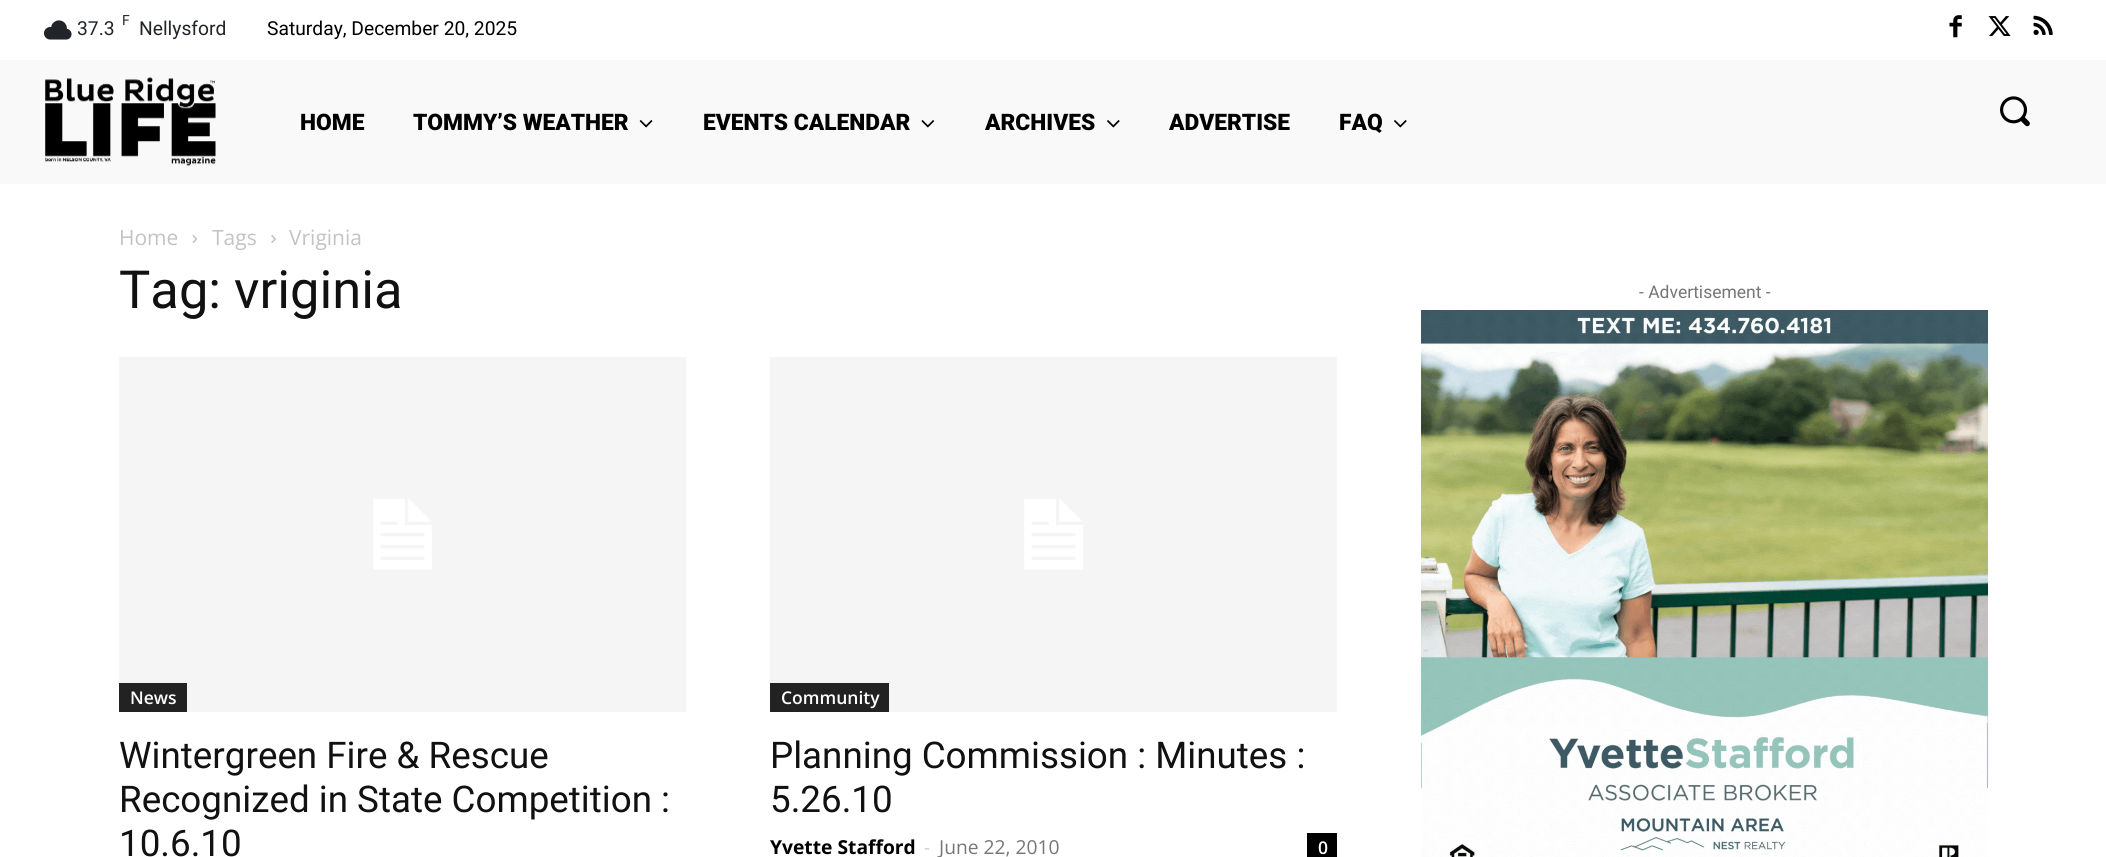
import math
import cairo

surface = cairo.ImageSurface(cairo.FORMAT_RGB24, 2106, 857)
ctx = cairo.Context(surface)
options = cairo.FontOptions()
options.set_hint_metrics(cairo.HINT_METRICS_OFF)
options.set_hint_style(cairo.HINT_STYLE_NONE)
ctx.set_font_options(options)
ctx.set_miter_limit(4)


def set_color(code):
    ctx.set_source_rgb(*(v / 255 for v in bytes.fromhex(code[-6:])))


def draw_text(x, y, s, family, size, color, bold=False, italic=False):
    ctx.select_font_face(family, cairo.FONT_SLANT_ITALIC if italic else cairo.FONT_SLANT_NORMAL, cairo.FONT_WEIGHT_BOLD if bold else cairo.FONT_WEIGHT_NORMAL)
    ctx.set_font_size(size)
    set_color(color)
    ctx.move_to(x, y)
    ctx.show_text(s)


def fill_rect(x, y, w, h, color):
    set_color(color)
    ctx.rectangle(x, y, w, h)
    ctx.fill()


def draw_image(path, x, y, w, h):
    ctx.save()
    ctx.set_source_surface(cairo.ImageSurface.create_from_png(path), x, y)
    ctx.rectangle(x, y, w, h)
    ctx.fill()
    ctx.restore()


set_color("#ffffff")
ctx.paint()
draw_image("assets/img1.png", 44, 20, 28, 20)
draw_text(122, 25, "F", "Roboto", 14, "#212529")
draw_text(77, 35, "37.3", "Roboto", 19.25, "#212529")
draw_text(139, 35, "Nellysford", "Roboto", 19.25, "#212529")
draw_text(267, 35, "Saturday, December 20, 2025", "Roboto", 19.25, "#000000")
draw_image("assets/img2.png", 1949, 15, 13, 23)
draw_image("assets/img3.png", 1988, 16, 23, 20)
draw_image("assets/img4.png", 2033, 15, 20, 20)
fill_rect(0, 60, 2106, 124, "#f9f9f9")
draw_image("assets/img5.png", 45, 77, 171, 90)
draw_text(300, 130, "HOME", "Roboto Black", 22.75, "#000000")
draw_text(413, 130, "TOMMY’S WEATHER", "Roboto Black", 22.75, "#000000")
draw_image("assets/img6.png", 639, 120, 14, 8)
draw_text(703, 130, "EVENTS CALENDAR", "Roboto Black", 22.75, "#000000")
draw_image("assets/img7.png", 921, 120, 14, 8)
draw_text(985, 130, "ARCHIVES", "Roboto Black", 22.75, "#000000")
draw_image("assets/img8.png", 1107, 120, 13, 8)
draw_text(1169, 130, "ADVERTISE", "Roboto Black", 22.75, "#000000")
draw_text(1339, 130, "FAQ", "Roboto Black", 22.75, "#000000")
draw_image("assets/img8.png", 1394, 120, 13, 8)
draw_image("assets/img9.png", 2000, 96, 30, 31)
draw_text(119, 245, "Home", "Open Sans", 21, "#c3c3c3")
draw_image("assets/img10.png", 192, 235, 6, 8)
draw_text(212, 245, "Tags", "Open Sans", 21, "#c3c3c3")
draw_image("assets/img11.png", 271, 235, 5, 8)
draw_text(289, 245, "Vriginia", "Open Sans", 21, "#c3c3c3")
draw_text(119, 308, "Tag: vriginia", "Roboto", 52.5, "#111111")
draw_image("assets/img12.png", 119, 357, 567, 355)
fill_rect(119, 683, 68, 29, "#222222")
draw_text(130, 704, "News", "Open Sans SemiBold", 17.5, "#ffffff")
draw_text(119, 768, "Wintergreen Fire & Rescue", "Roboto", 36.75, "#111111")
draw_text(119, 812, "Recognized in State Competition :", "Roboto", 36.75, "#111111")
draw_text(119, 856, "10.6.10", "Roboto", 36.75, "#111111")
draw_image("assets/img12.png", 770, 357, 567, 355)
fill_rect(770, 683, 119, 29, "#222222")
draw_text(781, 704, "Community", "Open Sans SemiBold", 17.5, "#ffffff")
draw_text(770, 768, "Planning Commission : Minutes :", "Roboto", 36.75, "#111111")
draw_text(770, 812, "5.26.10", "Roboto", 36.75, "#111111")
draw_text(770, 854, "Yvette Stafford", "Open Sans", 19.25, "#000000", bold=True)
draw_text(924, 854, "-", "Open Sans", 19.25, "#cccccc")
draw_text(939, 854, "June 22, 2010", "Open Sans", 19.25, "#767676")
fill_rect(1307, 833, 30, 24, "#000000")
draw_text(1318, 854, "0", "Open Sans SemiBold", 17.5, "#ffffff")
draw_text(1639, 298, "- Advertisement -", "Roboto", 17.5, "#767676")
draw_image("assets/img13.png", 1421, 310, 567, 547)
surface.write_to_png("output.png")
